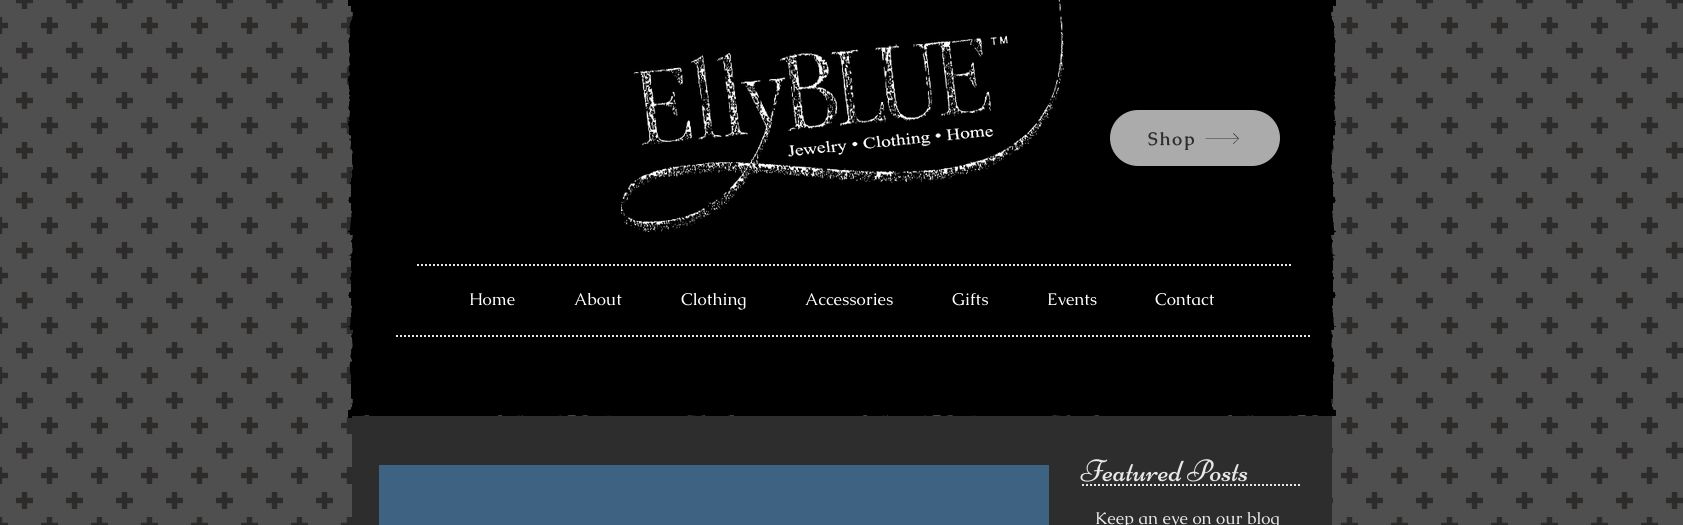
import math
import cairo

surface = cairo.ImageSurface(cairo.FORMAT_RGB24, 1683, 525)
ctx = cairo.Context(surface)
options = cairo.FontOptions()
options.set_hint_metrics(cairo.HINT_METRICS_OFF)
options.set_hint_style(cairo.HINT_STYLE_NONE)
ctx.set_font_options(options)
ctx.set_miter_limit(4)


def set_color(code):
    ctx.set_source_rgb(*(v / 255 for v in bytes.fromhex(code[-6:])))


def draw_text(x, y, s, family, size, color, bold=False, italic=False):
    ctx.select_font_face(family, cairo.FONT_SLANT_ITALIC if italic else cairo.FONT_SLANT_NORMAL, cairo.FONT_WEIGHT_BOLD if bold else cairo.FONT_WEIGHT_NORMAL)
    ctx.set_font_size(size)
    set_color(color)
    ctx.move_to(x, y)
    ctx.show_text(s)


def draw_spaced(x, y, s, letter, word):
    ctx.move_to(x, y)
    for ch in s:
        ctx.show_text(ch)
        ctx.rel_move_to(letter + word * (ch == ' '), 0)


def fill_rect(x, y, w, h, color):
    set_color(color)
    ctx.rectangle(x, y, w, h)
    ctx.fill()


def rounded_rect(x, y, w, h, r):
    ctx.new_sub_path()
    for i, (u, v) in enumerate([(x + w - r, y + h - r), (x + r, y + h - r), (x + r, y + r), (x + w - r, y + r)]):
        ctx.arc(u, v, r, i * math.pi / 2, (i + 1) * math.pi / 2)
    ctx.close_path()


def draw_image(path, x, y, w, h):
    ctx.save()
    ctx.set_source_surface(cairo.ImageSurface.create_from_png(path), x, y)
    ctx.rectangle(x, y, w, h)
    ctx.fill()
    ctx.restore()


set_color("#4f4f4f")
ctx.paint()
draw_image("assets/img1.png", 0, 0, 1683, 525)
fill_rect(355, 6, 974, 404, "#000000")
fill_rect(348, 0, 988, 6, "#000000")
draw_image("assets/img2.png", 348, 410, 988, 8)
draw_image("assets/img3.png", 348, 6, 7, 404)
draw_image("assets/img4.png", 1329, 6, 7, 404)
draw_image("assets/img5.png", 621, 0, 443, 232)
set_color("#ababab")
rounded_rect(1110, 110, 170, 56, 28)
ctx.fill()
ctx.save()
ctx.rectangle(1148, 127, 48, 23)
ctx.clip()
ctx.select_font_face("Caudex", cairo.FONT_SLANT_NORMAL, cairo.FONT_WEIGHT_BOLD)
ctx.set_font_size(18)
set_color("#2d2d2d")
draw_spaced(1148, 145, "Shop", 2, 0)
ctx.restore()
set_color("#2d2d2d")
ctx.new_path()
ctx.move_to(1233.5, 133)
ctx.line_to(1233, 133.5)
ctx.line_to(1238, 138.5)
ctx.line_to(1205.5, 138.5)
ctx.line_to(1205.5, 139)
ctx.line_to(1238, 139)
ctx.line_to(1233, 143.5)
ctx.line_to(1233.5, 144)
ctx.line_to(1239, 138.5)
ctx.close_path()
ctx.fill()
ctx.new_path()
ctx.move_to(417, 265)
ctx.line_to(1291, 265)
set_color("#e8e8e8")
ctx.set_dash([2, 2])
ctx.stroke()
draw_text(469, 305, "Home", "Caudex", 17, "#ffffff")
draw_text(574, 305, "About", "Caudex", 17, "#ffffff")
draw_text(681, 305, "Clothing", "Caudex", 17, "#ffffff")
draw_text(805, 305, "Accessories", "Caudex", 17, "#ffffff")
draw_text(952, 305, "Gifts", "Caudex", 17, "#ffffff")
draw_text(1047, 305, "Events", "Caudex", 17, "#ffffff")
draw_text(1155, 305, "Contact", "Caudex", 17, "#ffffff")
ctx.new_path()
ctx.move_to(396, 336)
ctx.line_to(1311, 336)
set_color("#e8e8e8")
ctx.stroke()
fill_rect(352, 416, 980, 109, "#2d2d2d")
fill_rect(379, 465, 670, 60, "#3e6282")
draw_image("assets/img6.png", 1080, 459, 168, 23)
ctx.new_path()
ctx.move_to(1082, 485)
ctx.line_to(1302, 485)
set_color("#e8e8e8")
ctx.stroke()
draw_text(1095, 524, "Keep an eye on our blog", "Caudex", 17, "#e8e8e8")
surface.write_to_png("output.png")
